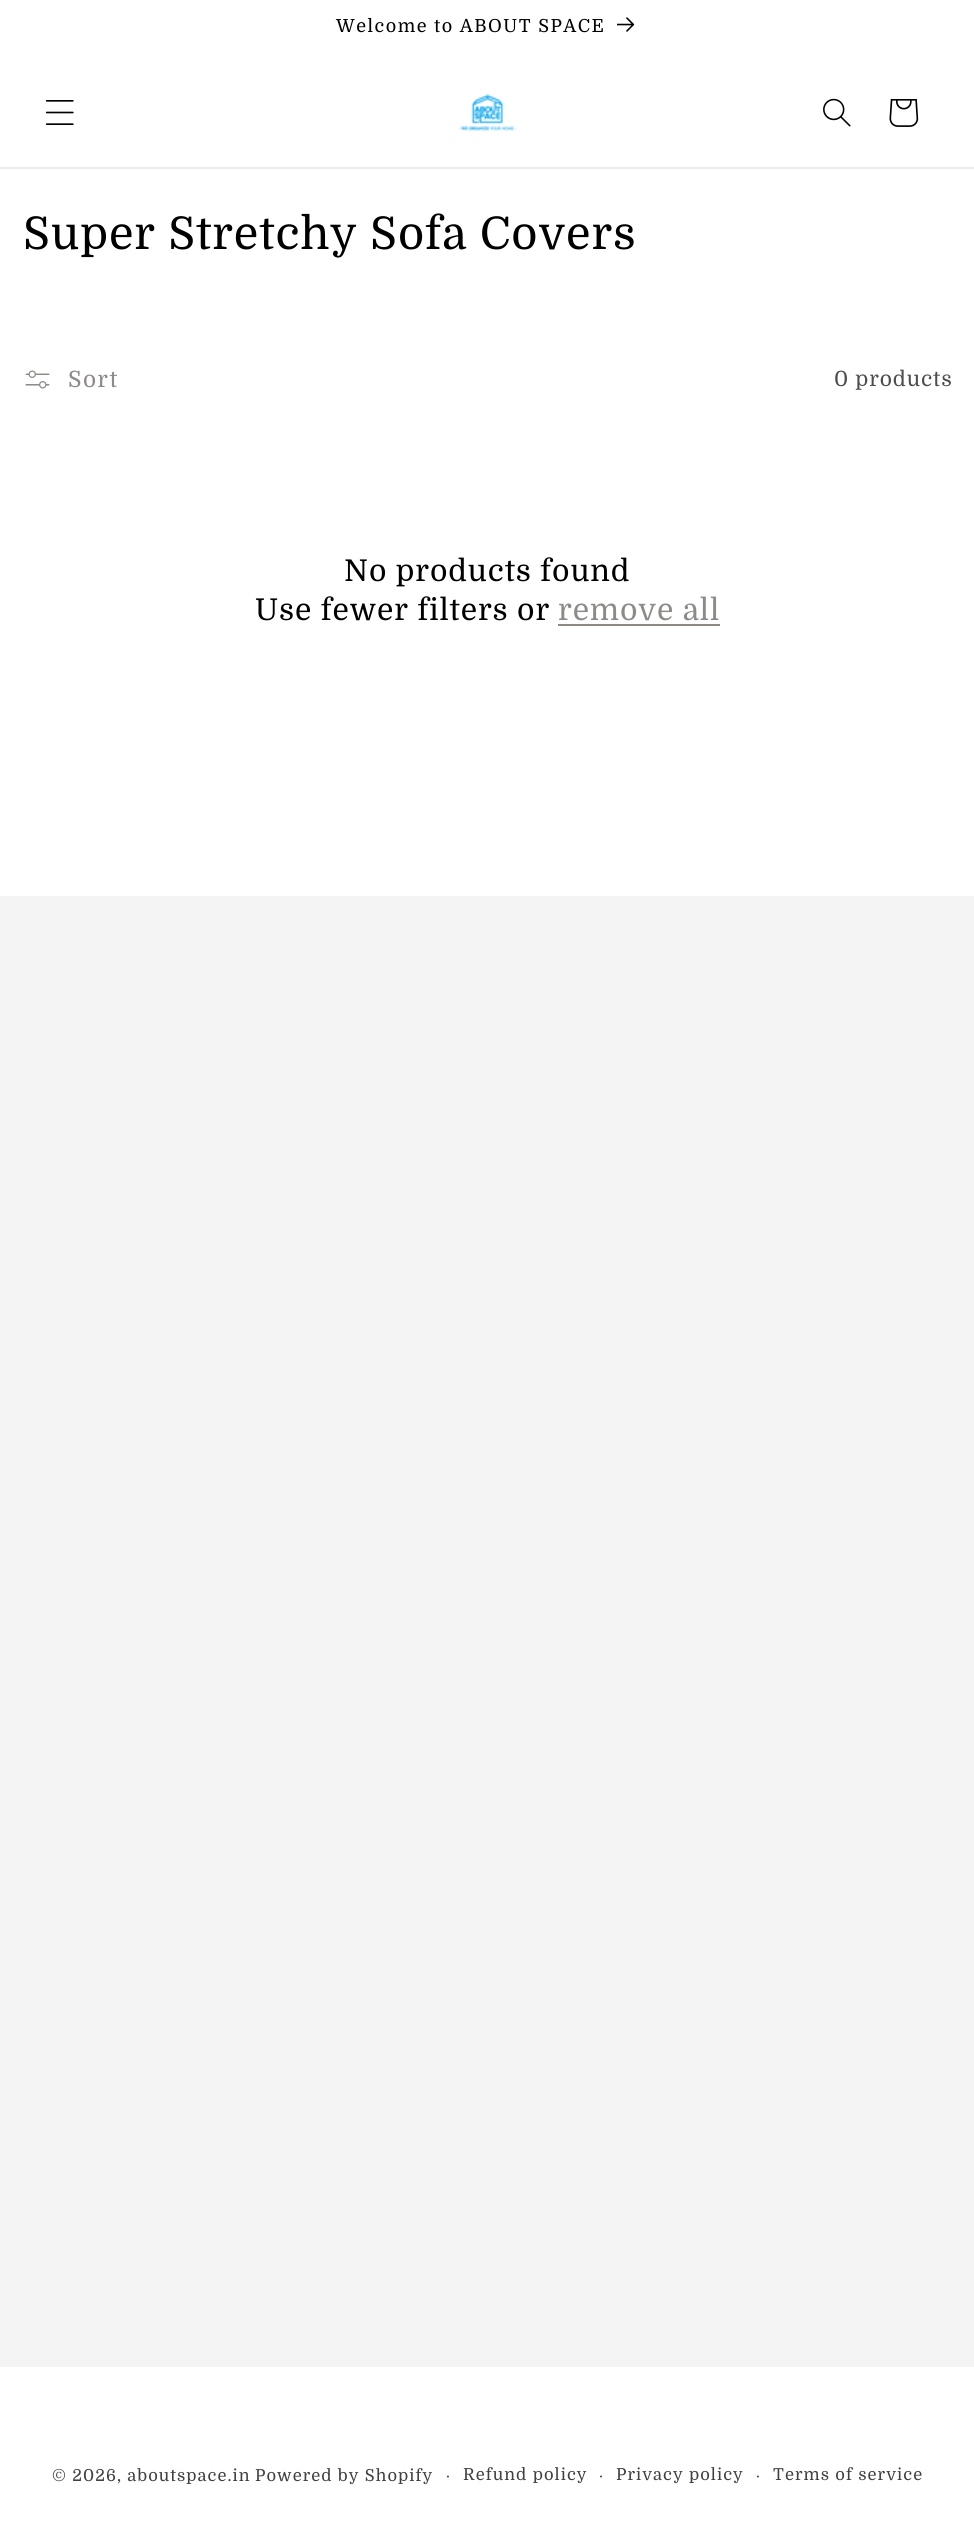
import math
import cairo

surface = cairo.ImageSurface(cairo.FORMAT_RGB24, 974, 2539)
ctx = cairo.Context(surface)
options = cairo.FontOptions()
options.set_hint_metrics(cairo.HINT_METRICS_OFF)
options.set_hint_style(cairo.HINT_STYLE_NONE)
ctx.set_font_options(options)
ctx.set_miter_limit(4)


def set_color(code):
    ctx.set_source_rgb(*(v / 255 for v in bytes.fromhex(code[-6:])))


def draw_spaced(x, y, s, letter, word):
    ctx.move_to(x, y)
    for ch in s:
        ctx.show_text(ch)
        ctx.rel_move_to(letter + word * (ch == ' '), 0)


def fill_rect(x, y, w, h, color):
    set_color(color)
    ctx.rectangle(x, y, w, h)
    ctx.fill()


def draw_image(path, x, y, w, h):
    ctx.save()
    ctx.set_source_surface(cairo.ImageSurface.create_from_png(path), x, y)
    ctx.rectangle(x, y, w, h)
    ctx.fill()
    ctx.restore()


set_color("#f4f4f4")
ctx.paint()
fill_rect(0, 0, 974, 167, "#ffffff")
fill_rect(0, 167, 974, 2, "#ebebeb")
draw_image("assets/img1.png", 45, 100, 29, 25)
draw_image("assets/img2.png", 458, 94, 59, 37)
draw_image("assets/img3.png", 823, 98, 28, 29)
draw_image("assets/img4.png", 889, 99, 30, 28)
ctx.select_font_face("Domine")
ctx.set_font_size(18)
set_color("#000000")
draw_spaced(336, 32, "Welcome to ABOUT SPACE", 1.5, 0)
draw_image("assets/img5.png", 617, 17, 18, 15)
fill_rect(0, 169, 974, 727, "#ffffff")
ctx.set_font_size(45)
set_color("#000000")
draw_spaced(23, 249, "Super Stretchy Sofa Covers", 0.9, 0)
draw_image("assets/img6.png", 25, 370, 25, 19)
ctx.set_font_size(22.5)
set_color("#8d8a87")
draw_spaced(68, 387, "Sort", 1.5, 0)
ctx.set_font_size(21)
set_color("#4d4d4d")
draw_spaced(834, 386, "0 products", 0.9, 0)
ctx.set_font_size(30)
set_color("#000000")
draw_spaced(344, 581, "No products found", 0.9, 0)
draw_spaced(255, 620, "Use fewer filters or", 0.9, 0)
set_color("#8d8a87")
draw_spaced(558, 620, "remove all", 0.9, 0)
fill_rect(558, 624, 162, 2, "#8d8a87")
fill_rect(0, 2367, 974, 172, "#ffffff")
ctx.set_font_size(16.5)
set_color("#404040")
draw_spaced(52, 2481, "© 2026, aboutspace.in", 1.05, 0)
draw_spaced(255, 2481, "Powered by Shopify", 1.05, 0)
ctx.set_font_size(15)
draw_spaced(446, 2481, "·", 1.05, 0)
ctx.set_font_size(16.5)
draw_spaced(463, 2480, "Refund policy", 1.05, 0)
ctx.set_font_size(15)
draw_spaced(599, 2481, "·", 1.05, 0)
ctx.set_font_size(16.5)
draw_spaced(616, 2480, "Privacy policy", 1.05, 0)
ctx.set_font_size(15)
draw_spaced(756, 2481, "·", 1.05, 0)
ctx.set_font_size(16.5)
draw_spaced(773, 2480, "Terms of service", 1.05, 0)
surface.write_to_png("output.png")
